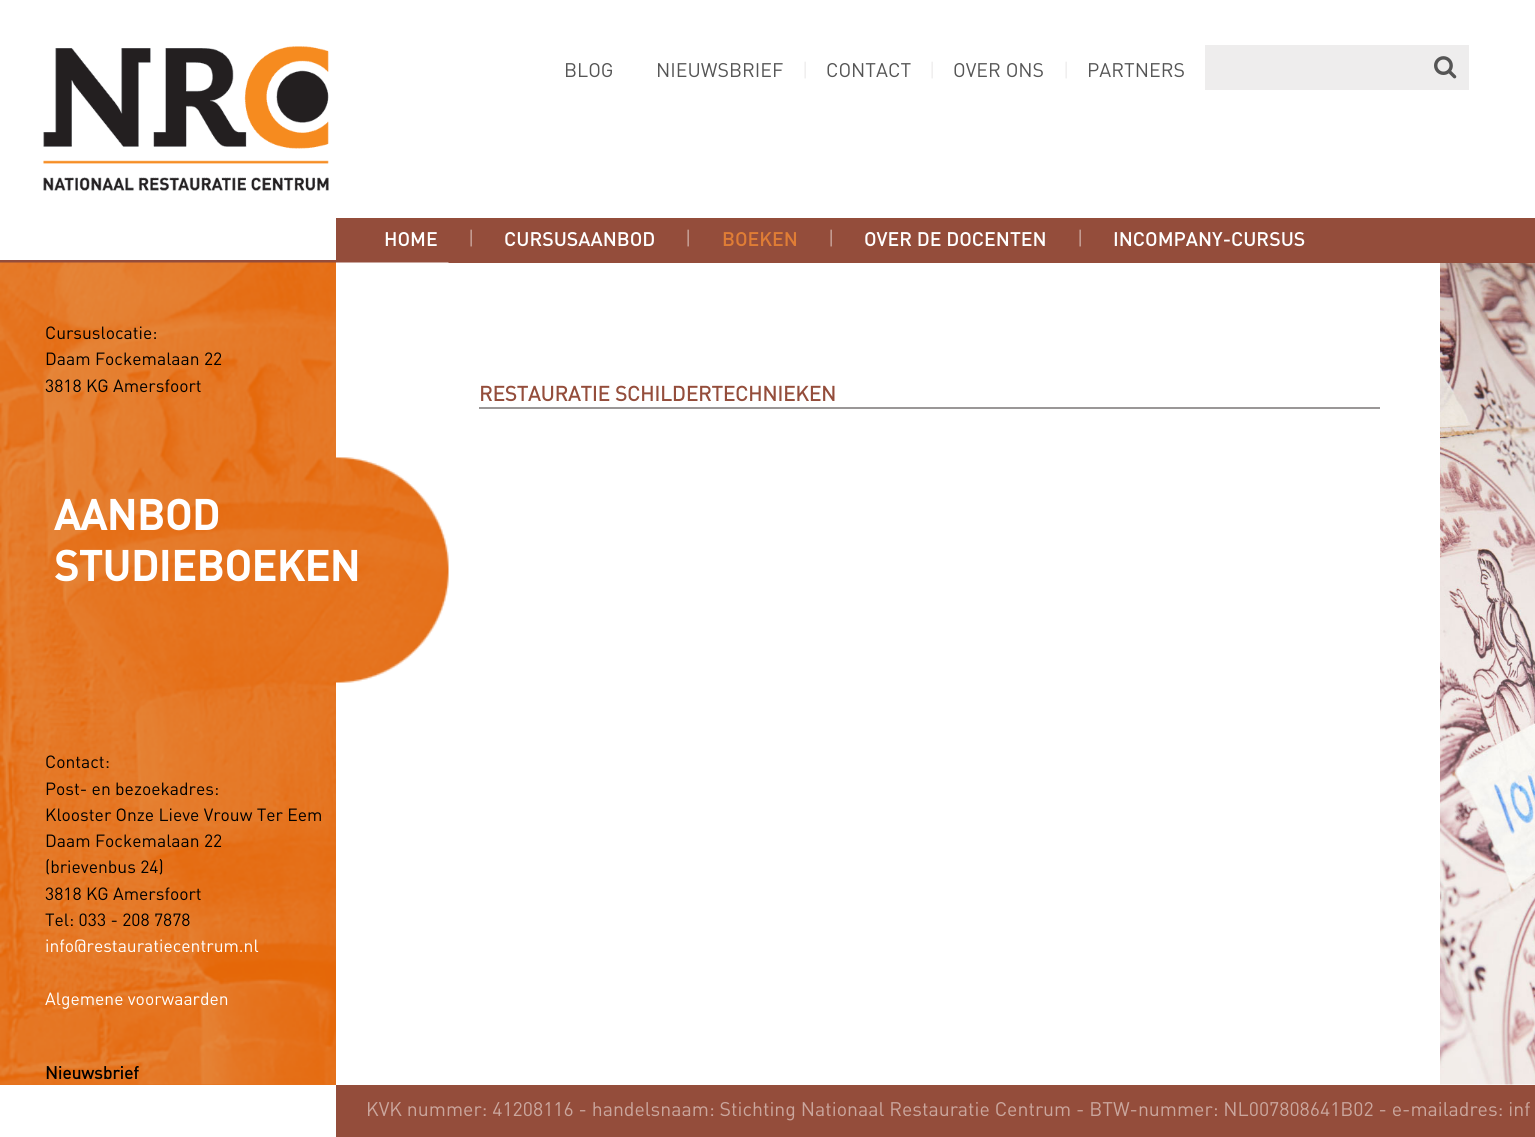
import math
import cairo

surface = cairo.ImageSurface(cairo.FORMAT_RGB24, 1535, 1137)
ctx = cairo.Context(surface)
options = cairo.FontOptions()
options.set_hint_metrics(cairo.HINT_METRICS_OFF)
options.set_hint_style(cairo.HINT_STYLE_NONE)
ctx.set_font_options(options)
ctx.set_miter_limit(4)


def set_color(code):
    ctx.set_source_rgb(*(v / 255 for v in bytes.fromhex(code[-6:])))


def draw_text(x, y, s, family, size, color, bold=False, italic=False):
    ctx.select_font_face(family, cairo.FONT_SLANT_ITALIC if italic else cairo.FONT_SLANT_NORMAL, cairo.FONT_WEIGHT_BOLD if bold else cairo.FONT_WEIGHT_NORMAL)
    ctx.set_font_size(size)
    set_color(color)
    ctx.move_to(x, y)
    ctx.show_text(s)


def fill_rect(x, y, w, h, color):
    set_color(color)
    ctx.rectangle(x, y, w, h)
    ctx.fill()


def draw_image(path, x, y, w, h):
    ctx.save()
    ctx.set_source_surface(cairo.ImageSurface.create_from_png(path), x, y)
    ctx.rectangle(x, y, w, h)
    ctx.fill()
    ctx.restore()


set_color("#ffffff")
ctx.paint()
draw_image("assets/img1.png", 43, 46, 286, 145)
draw_text(564, 77, "BLOG", "DIN", 19.5, "#555555")
draw_text(656, 77, "NIEUWSBRIEF", "DIN", 19.5, "#555555")
draw_text(802, 77, "|", "DIN", 19.5, "#eeeded")
draw_text(826, 77, "CONTACT", "DIN", 19.5, "#555555")
draw_text(929, 77, "|", "DIN", 19.5, "#eeeded")
draw_text(953, 77, "OVER ONS", "DIN", 19.5, "#555555")
draw_text(1063, 77, "|", "DIN", 19.5, "#eeeded")
draw_text(1087, 77, "PARTNERS", "DIN", 19.5, "#555555")
fill_rect(1205, 45, 264, 45, "#eeeded")
draw_image("assets/img2.png", 1434, 56, 23, 23)
fill_rect(0, 260, 1535, 3, "#944d3b")
fill_rect(336, 218, 1199, 42, "#944d3b")
draw_text(384, 246, "HOME", "DIN Medium", 19.5, "#ffffff")
draw_text(468, 245, "|", "DIN", 19.5, "#caa69d")
draw_text(504, 246, "CURSUSAANBOD", "DIN Medium", 19.5, "#ffffff")
draw_text(685, 245, "|", "DIN", 19.5, "#caa69d")
draw_text(722, 246, "BOEKEN", "DIN Medium", 19.5, "#e07d35")
draw_text(828, 245, "|", "DIN", 19.5, "#caa69d")
draw_text(864, 246, "OVER DE DOCENTEN", "DIN Medium", 19.5, "#ffffff")
draw_text(1077, 245, "|", "DIN", 19.5, "#caa69d")
draw_text(1113, 246, "INCOMPANY-CURSUS", "DIN Medium", 19.5, "#ffffff")
fill_rect(0, 1084, 336, 1, "#e5721c")
draw_image("assets/img3.png", 0, 262, 336, 823)
draw_text(45, 339, "Cursuslocatie:", "DIN", 17.5, "#000000")
draw_text(45, 365, "Daam Fockemalaan 22", "DIN", 17.5, "#000000")
draw_text(45, 392, "3818 KG Amersfoort", "DIN", 17.5, "#000000")
draw_text(54, 530, "AANBOD", "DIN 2", 42, "#ffffff", bold=True)
draw_image("assets/img4.png", 336, 262, 113, 421)
draw_text(54, 581, "STUDIEBOEKEN", "DIN 2", 42, "#ffffff", bold=True)
draw_text(45, 768, "Contact:", "DIN", 17.5, "#000000")
draw_text(45, 795, "Post- en bezoekadres:", "DIN", 17.5, "#000000")
draw_text(45, 821, "Klooster Onze Lieve Vrouw Ter Eem", "DIN", 17.5, "#000000")
draw_text(45, 847, "Daam Fockemalaan 22", "DIN", 17.5, "#000000")
draw_text(45, 873, "(brievenbus 24)", "DIN", 17.5, "#000000")
draw_text(45, 900, "3818 KG Amersfoort", "DIN", 17.5, "#000000")
draw_text(45, 926, "Tel: 033 - 208 7878", "DIN", 17.5, "#000000")
draw_text(45, 952, "info@restauratiecentrum.nl", "DIN", 17.5, "#ffffff")
draw_text(45, 1005, "Algemene voorwaarden", "DIN", 17.5, "#ffffff")
draw_text(45, 1079, "Nieuwsbrief", "DIN", 17.5, "#000000", bold=True)
fill_rect(479, 407, 901, 2, "#9a9797")
draw_text(479, 401, "RESTAURATIE SCHILDERTECHNIEKEN", "DIN", 20.5, "#944d3b", bold=True)
draw_image("assets/img5.png", 1440, 263, 95, 822)
fill_rect(336, 1085, 1199, 52, "#944d3b")
draw_text(366, 1116, "KVK nummer: 41208116 - handelsnaam: Stichting Nationaal Restauratie Centrum - BTW-nummer: NL007808641B02 - e-mailadres: inf", "DIN", 19.5, "#caa69d")
surface.write_to_png("output.png")
